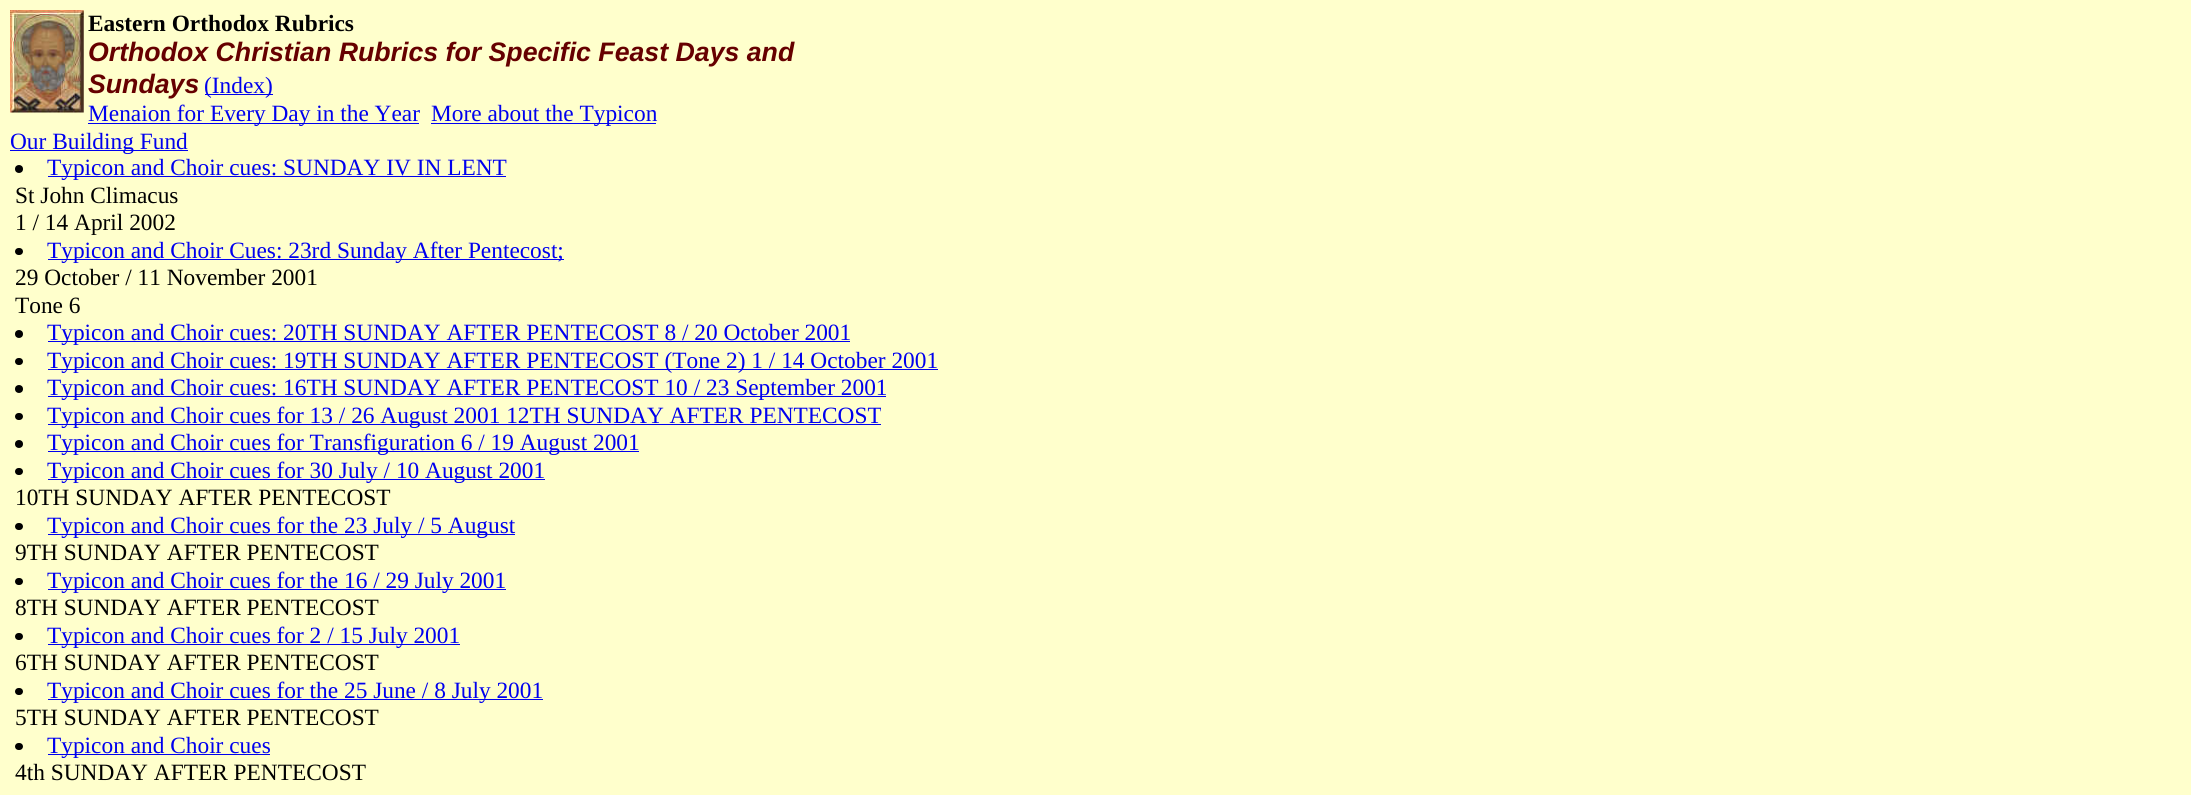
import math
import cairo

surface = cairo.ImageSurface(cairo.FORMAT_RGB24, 2191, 795)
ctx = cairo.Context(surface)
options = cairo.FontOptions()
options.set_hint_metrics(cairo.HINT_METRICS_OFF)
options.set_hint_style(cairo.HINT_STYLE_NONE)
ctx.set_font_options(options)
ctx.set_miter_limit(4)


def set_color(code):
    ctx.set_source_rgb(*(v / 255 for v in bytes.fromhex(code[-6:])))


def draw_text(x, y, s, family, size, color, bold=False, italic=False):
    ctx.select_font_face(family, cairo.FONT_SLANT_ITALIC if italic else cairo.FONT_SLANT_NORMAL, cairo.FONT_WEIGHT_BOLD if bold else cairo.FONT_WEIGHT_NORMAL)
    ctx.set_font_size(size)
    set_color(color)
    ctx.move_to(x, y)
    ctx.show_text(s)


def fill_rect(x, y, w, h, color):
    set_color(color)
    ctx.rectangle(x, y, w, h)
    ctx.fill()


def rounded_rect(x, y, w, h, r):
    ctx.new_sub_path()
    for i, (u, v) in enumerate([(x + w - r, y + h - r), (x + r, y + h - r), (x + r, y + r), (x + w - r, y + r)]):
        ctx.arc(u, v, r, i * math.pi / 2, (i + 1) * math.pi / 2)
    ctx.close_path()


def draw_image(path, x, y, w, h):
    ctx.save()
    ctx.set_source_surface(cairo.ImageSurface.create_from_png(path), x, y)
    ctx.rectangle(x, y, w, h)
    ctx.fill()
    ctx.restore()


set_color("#ffffcc")
ctx.paint()
draw_image("assets/img1.png", 10, 10, 74, 103)
draw_text(88, 31, "Eastern Orthodox Rubrics", "Liberation Serif", 23.35, "#000000", bold=True)
draw_text(88, 61, "Orthodox Christian Rubrics for Specific Feast Days and", "Liberation Sans", 26.7, "#660000", bold=True, italic=True)
draw_text(88, 93, "Sundays", "Liberation Sans", 26.7, "#660000", bold=True, italic=True)
fill_rect(205, 94, 68, 1, "#0000ee")
draw_text(204, 93, "(Index)", "Liberation Serif", 23.35, "#0000ee")
fill_rect(88, 123, 331, 1, "#0000ee")
draw_text(88, 121, "Menaion for Every Day in the Year", "Liberation Serif", 23.35, "#0000ee")
fill_rect(431, 123, 225, 1, "#0000ee")
draw_text(431, 121, "More about the Typicon", "Liberation Serif", 23.35, "#0000ee")
fill_rect(10, 150, 178, 1, "#0000ee")
draw_text(10, 149, "Our Building Fund", "Liberation Serif", 23.35, "#0000ee")
set_color("#000000")
ctx.new_path()
ctx.arc(19, 169, 4, 0, 2 * math.pi)
ctx.fill()
fill_rect(48, 176, 458, 1, "#0000ee")
draw_text(47, 175, "Typicon and Choir cues: SUNDAY IV IN LENT", "Liberation Serif", 23.35, "#0000ee")
draw_text(15, 203, "St John Climacus", "Liberation Serif", 23.35, "#000000")
draw_text(15, 230, "1 / 14 April 2002", "Liberation Serif", 23.35, "#000000")
rounded_rect(15, 248, 8, 7, 3.5)
ctx.fill()
fill_rect(48, 259, 516, 1, "#0000ee")
draw_text(47, 258, "Typicon and Choir Cues: 23rd Sunday After Pentecost;", "Liberation Serif", 23.35, "#0000ee")
draw_text(15, 285, "29 October / 11 November 2001", "Liberation Serif", 23.35, "#000000")
draw_text(15, 313, "Tone 6", "Liberation Serif", 23.35, "#000000")
ctx.new_path()
ctx.arc(19, 334, 4, 0, 2 * math.pi)
ctx.fill()
fill_rect(48, 341, 802, 1, "#0000ee")
draw_text(47, 340, "Typicon and Choir cues: 20TH SUNDAY AFTER PENTECOST 8 / 20 October 2001", "Liberation Serif", 23.35, "#0000ee")
set_color("#000000")
rounded_rect(15, 358, 8, 7, 3.5)
ctx.fill()
fill_rect(48, 369, 890, 1, "#0000ee")
draw_text(47, 368, "Typicon and Choir cues: 19TH SUNDAY AFTER PENTECOST (Tone 2) 1 / 14 October 2001", "Liberation Serif", 23.35, "#0000ee")
set_color("#000000")
ctx.new_path()
ctx.arc(19, 389, 4, 0, 2 * math.pi)
ctx.fill()
fill_rect(48, 396, 838, 1, "#0000ee")
draw_text(47, 395, "Typicon and Choir cues: 16TH SUNDAY AFTER PENTECOST 10 / 23 September 2001", "Liberation Serif", 23.35, "#0000ee")
set_color("#000000")
rounded_rect(15, 413, 8, 7, 3.5)
ctx.fill()
fill_rect(48, 424, 833, 1, "#0000ee")
draw_text(47, 423, "Typicon and Choir cues for 13 / 26 August 2001 12TH SUNDAY AFTER PENTECOST", "Liberation Serif", 23.35, "#0000ee")
set_color("#000000")
ctx.new_path()
ctx.arc(19, 444, 4, 0, 2 * math.pi)
ctx.fill()
fill_rect(48, 451, 591, 1, "#0000ee")
draw_text(47, 450, "Typicon and Choir cues for Transfiguration 6 / 19 August 2001", "Liberation Serif", 23.35, "#0000ee")
set_color("#000000")
rounded_rect(15, 468, 8, 7, 3.5)
ctx.fill()
fill_rect(48, 479, 497, 1, "#0000ee")
draw_text(47, 478, "Typicon and Choir cues for 30 July / 10 August 2001", "Liberation Serif", 23.35, "#0000ee")
draw_text(15, 505, "10TH SUNDAY AFTER PENTECOST", "Liberation Serif", 23.35, "#000000")
rounded_rect(15, 523, 8, 7, 3.5)
ctx.fill()
fill_rect(48, 534, 467, 1, "#0000ee")
draw_text(47, 533, "Typicon and Choir cues for the 23 July / 5 August", "Liberation Serif", 23.35, "#0000ee")
draw_text(15, 560, "9TH SUNDAY AFTER PENTECOST", "Liberation Serif", 23.35, "#000000")
rounded_rect(15, 578, 8, 7, 3.5)
ctx.fill()
fill_rect(48, 589, 458, 1, "#0000ee")
draw_text(47, 588, "Typicon and Choir cues for the 16 / 29 July 2001", "Liberation Serif", 23.35, "#0000ee")
draw_text(15, 615, "8TH SUNDAY AFTER PENTECOST", "Liberation Serif", 23.35, "#000000")
rounded_rect(15, 633, 8, 7, 3.5)
ctx.fill()
fill_rect(48, 644, 412, 1, "#0000ee")
draw_text(47, 643, "Typicon and Choir cues for 2 / 15 July 2001", "Liberation Serif", 23.35, "#0000ee")
draw_text(15, 670, "6TH SUNDAY AFTER PENTECOST", "Liberation Serif", 23.35, "#000000")
rounded_rect(15, 688, 8, 7, 3.5)
ctx.fill()
fill_rect(48, 699, 495, 1, "#0000ee")
draw_text(47, 698, "Typicon and Choir cues for the 25 June / 8 July 2001", "Liberation Serif", 23.35, "#0000ee")
draw_text(15, 725, "5TH SUNDAY AFTER PENTECOST", "Liberation Serif", 23.35, "#000000")
rounded_rect(15, 743, 8, 7, 3.5)
ctx.fill()
fill_rect(48, 754, 222, 1, "#0000ee")
draw_text(47, 753, "Typicon and Choir cues", "Liberation Serif", 23.35, "#0000ee")
draw_text(15, 780, "4th SUNDAY AFTER PENTECOST", "Liberation Serif", 23.35, "#000000")
surface.write_to_png("output.png")
